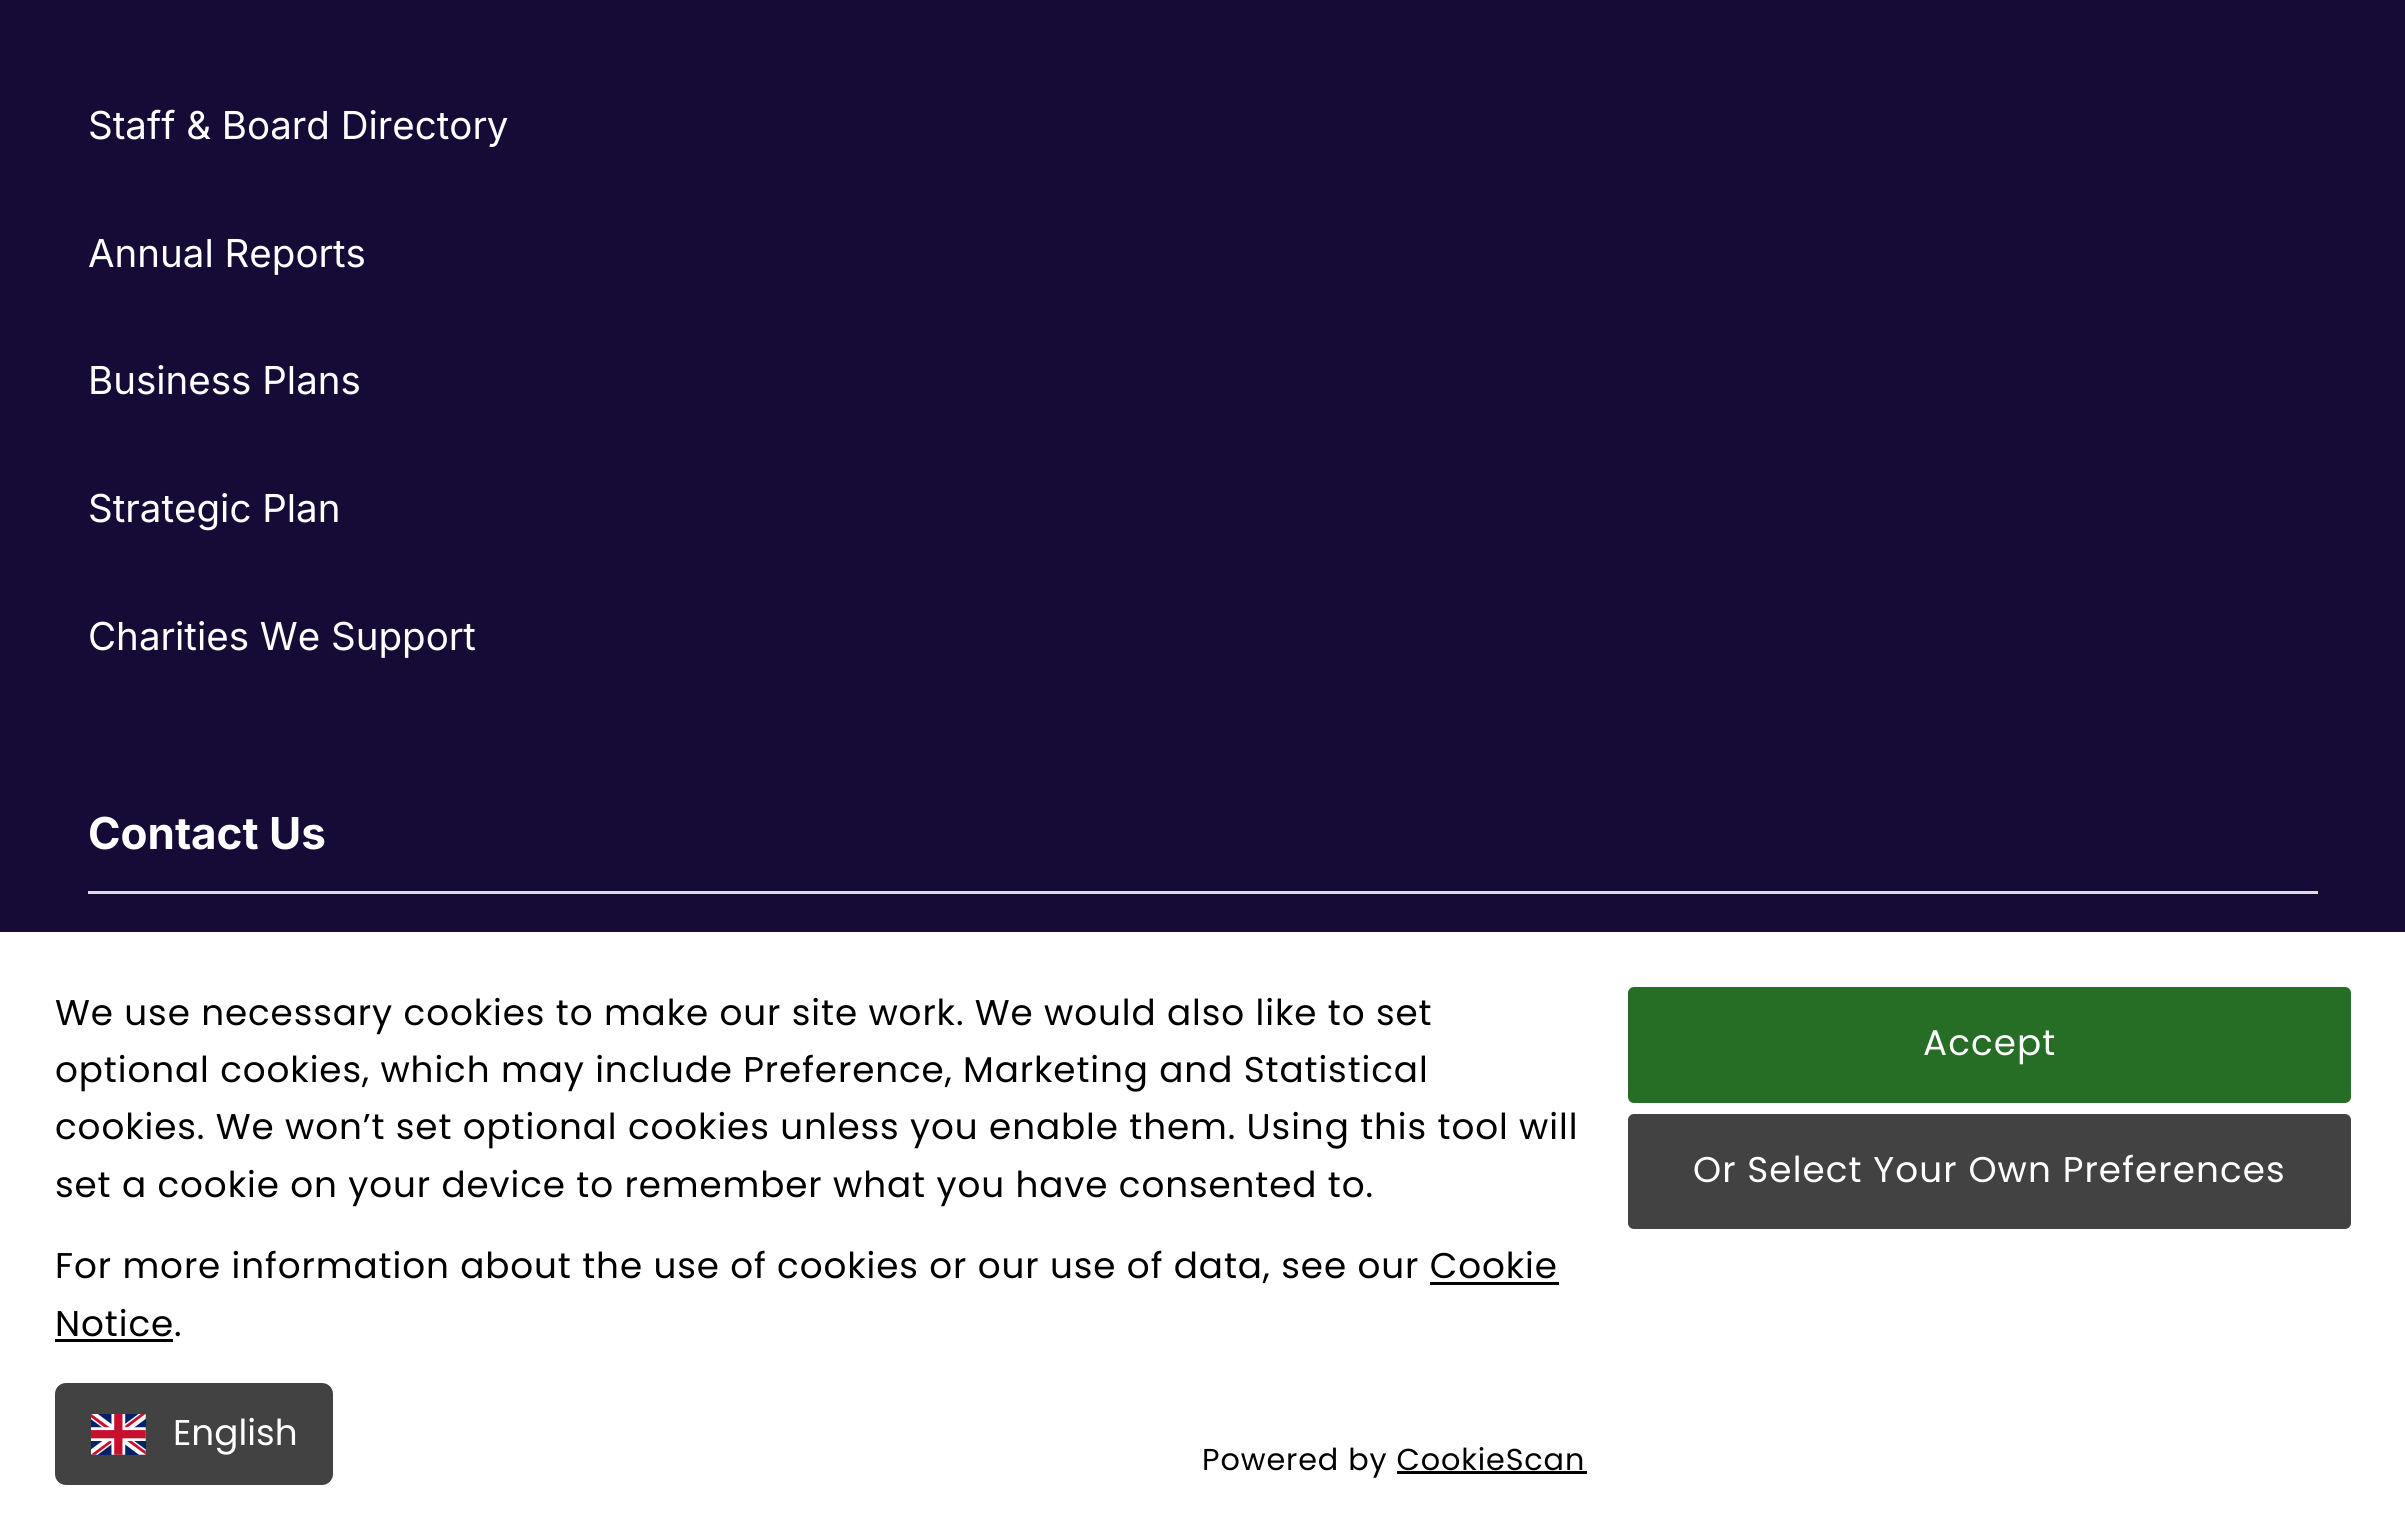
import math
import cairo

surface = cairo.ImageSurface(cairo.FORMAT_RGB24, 2405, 1539)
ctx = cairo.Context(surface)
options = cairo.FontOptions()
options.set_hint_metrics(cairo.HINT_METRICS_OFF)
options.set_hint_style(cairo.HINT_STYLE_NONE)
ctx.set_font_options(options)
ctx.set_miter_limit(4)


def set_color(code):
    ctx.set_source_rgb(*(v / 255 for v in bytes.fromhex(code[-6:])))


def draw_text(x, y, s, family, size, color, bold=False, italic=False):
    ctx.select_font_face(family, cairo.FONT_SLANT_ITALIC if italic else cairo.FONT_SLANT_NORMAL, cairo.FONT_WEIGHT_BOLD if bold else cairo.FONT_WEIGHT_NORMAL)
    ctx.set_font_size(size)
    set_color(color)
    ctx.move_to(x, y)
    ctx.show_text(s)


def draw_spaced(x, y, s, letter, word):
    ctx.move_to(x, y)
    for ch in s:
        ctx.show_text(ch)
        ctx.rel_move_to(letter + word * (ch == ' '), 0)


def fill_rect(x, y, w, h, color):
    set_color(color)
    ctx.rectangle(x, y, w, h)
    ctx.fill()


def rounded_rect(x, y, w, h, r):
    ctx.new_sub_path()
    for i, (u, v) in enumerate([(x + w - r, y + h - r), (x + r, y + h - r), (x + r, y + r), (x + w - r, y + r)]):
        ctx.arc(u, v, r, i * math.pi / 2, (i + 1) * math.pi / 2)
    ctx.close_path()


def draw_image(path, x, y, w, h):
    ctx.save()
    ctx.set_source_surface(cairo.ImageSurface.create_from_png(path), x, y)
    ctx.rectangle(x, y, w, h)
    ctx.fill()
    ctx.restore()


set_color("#160b36")
ctx.paint()
draw_text(88, 139, "Staff & Board Directory", "Inter", 38.5, "#ffffff")
draw_text(88, 267, "Annual Reports", "Inter", 38.5, "#ffffff")
draw_text(88, 394, "Business Plans", "Inter", 38.5, "#ffffff")
draw_text(88, 522, "Strategic Plan", "Inter", 38.5, "#ffffff")
draw_text(88, 650, "Charities We Support", "Inter", 38.5, "#ffffff")
fill_rect(88, 891, 2230, 3, "#dedede")
draw_text(88, 849, "Contact Us", "Inter", 44, "#ffffff", bold=True)
fill_rect(0, 932, 2405, 607, "#ffffff")
ctx.select_font_face("Poppins")
ctx.set_font_size(35.75)
set_color("#000000")
draw_spaced(55, 1025, "We use necessary cookies to make our site work. We would also like to set", 0.9, 0)
draw_spaced(55, 1082, "optional cookies, which may include Preference, Marketing and Statistical", 0.9, 0)
draw_spaced(55, 1139, "cookies. We won’t set optional cookies unless you enable them. Using this tool will", 0.9, 0)
draw_spaced(55, 1197, "set a cookie on your device to remember what you have consented to.", 0.9, 0)
draw_spaced(55, 1278, "For more information about the use of cookies or our use of data, see our Cookie", 0.9, 0)
draw_spaced(55, 1336, "Notice.", 0.9, 0)
fill_rect(1430, 1282, 129, 3, "#000000")
fill_rect(55, 1339, 118, 3, "#000000")
set_color("#424242")
rounded_rect(55, 1383, 278, 102, 11)
ctx.fill()
fill_rect(58, 1386, 272, 96, "#424242")
draw_image("assets/img1.png", 91, 1414, 55, 41)
draw_text(173, 1445, "English", "Poppins", 35.75, "#ffffff")
ctx.set_font_size(30.25)
set_color("#000000")
draw_spaced(1202, 1470, "Powered by CookieScan", 0.9, 0)
fill_rect(1397, 1471, 190, 3, "#000000")
set_color("#266d26")
rounded_rect(1629.5, 988.5, 720, 113, 4.5)
ctx.fill_preserve()
ctx.set_line_width(3)
ctx.stroke()
ctx.set_font_size(35.75)
set_color("#ffffff")
draw_spaced(1923, 1055, "Accept", 1.1, 0)
set_color("#424242")
rounded_rect(1629.5, 1115.5, 720, 112, 4.5)
ctx.fill_preserve()
ctx.stroke()
set_color("#ffffff")
draw_spaced(1693, 1182, "Or Select Your Own Preferences", 1.1, 0)
surface.write_to_png("output.png")
